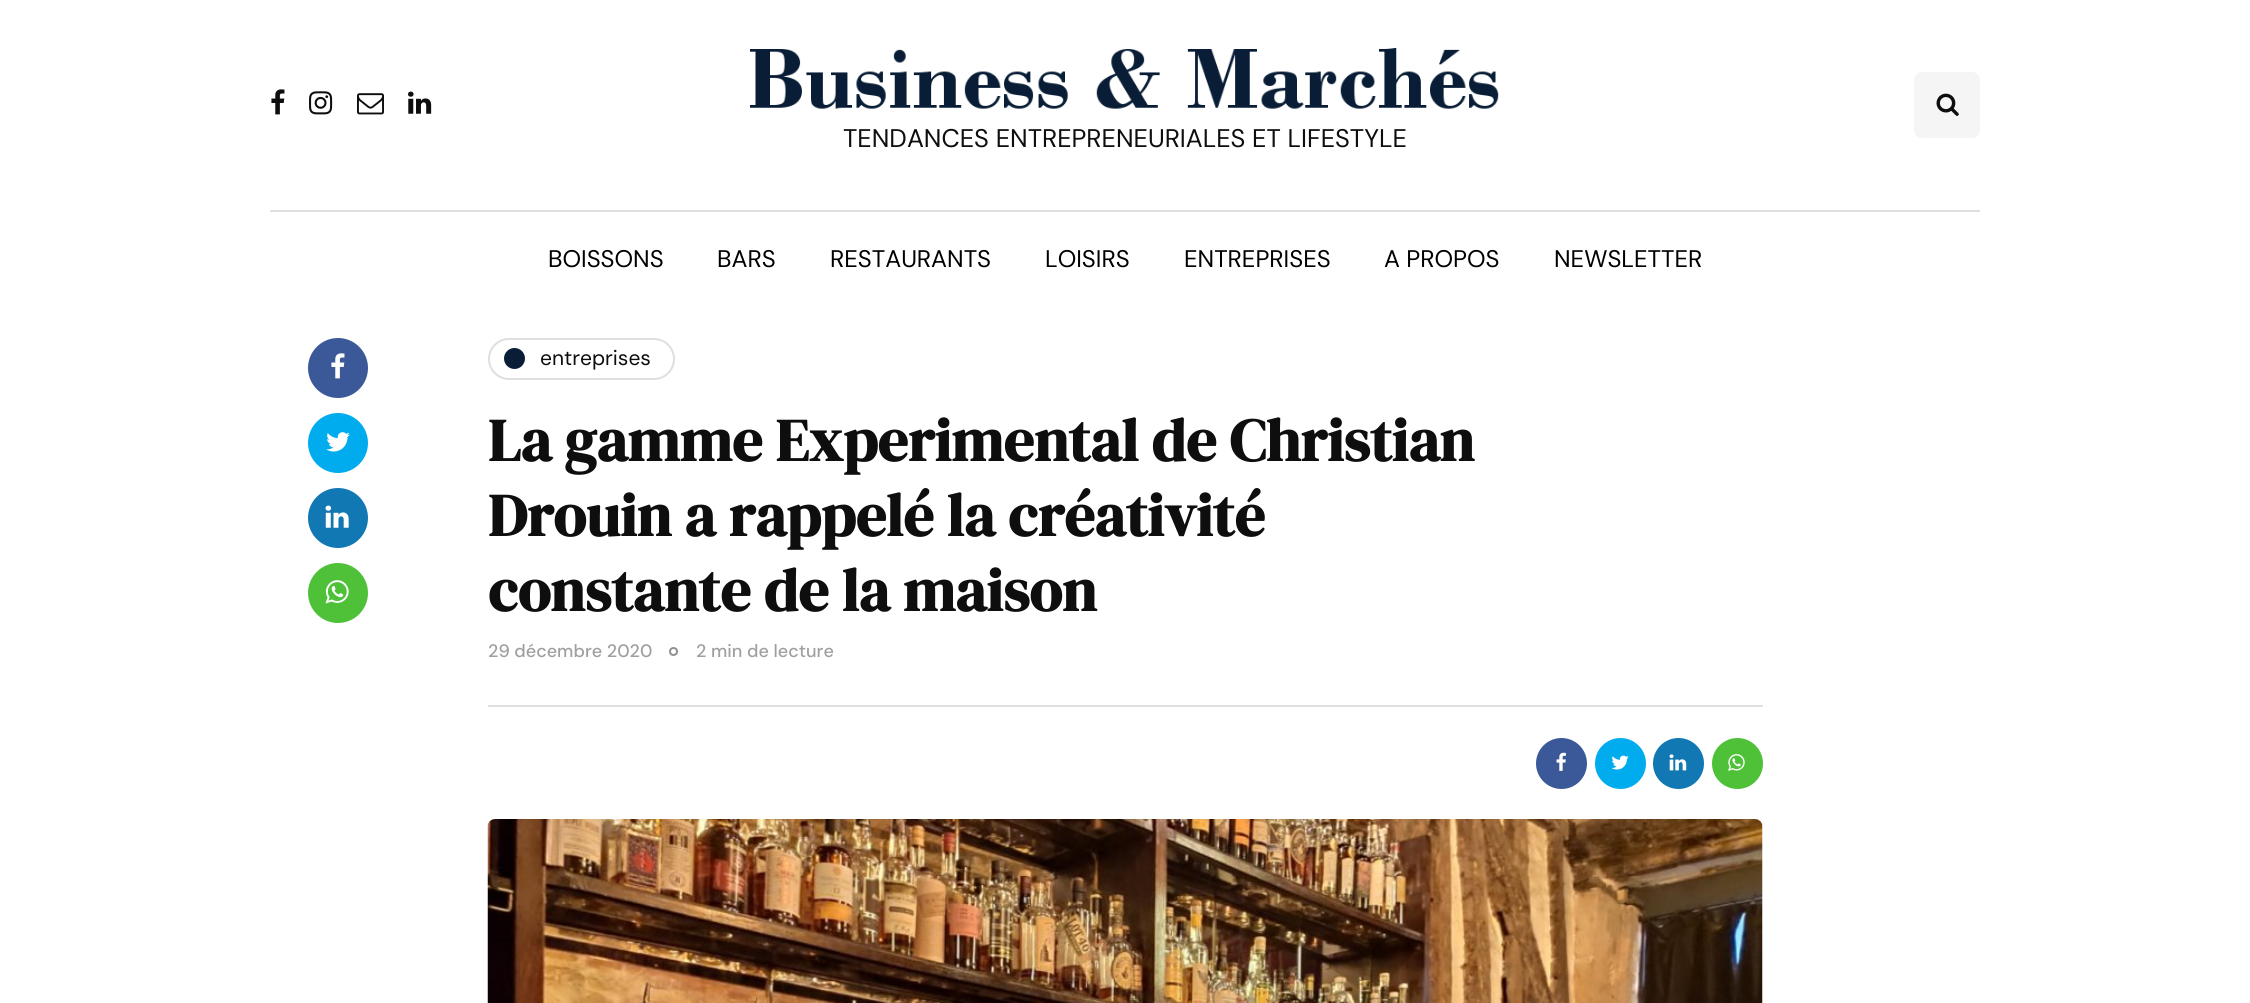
import math
import cairo

surface = cairo.ImageSurface(cairo.FORMAT_RGB24, 2250, 1003)
ctx = cairo.Context(surface)
options = cairo.FontOptions()
options.set_hint_metrics(cairo.HINT_METRICS_OFF)
options.set_hint_style(cairo.HINT_STYLE_NONE)
ctx.set_font_options(options)
ctx.set_miter_limit(4)


def set_color(code):
    ctx.set_source_rgb(*(v / 255 for v in bytes.fromhex(code[-6:])))


def draw_text(x, y, s, family, size, color, bold=False, italic=False):
    ctx.select_font_face(family, cairo.FONT_SLANT_ITALIC if italic else cairo.FONT_SLANT_NORMAL, cairo.FONT_WEIGHT_BOLD if bold else cairo.FONT_WEIGHT_NORMAL)
    ctx.set_font_size(size)
    set_color(color)
    ctx.move_to(x, y)
    ctx.show_text(s)


def fill_rect(x, y, w, h, color):
    set_color(color)
    ctx.rectangle(x, y, w, h)
    ctx.fill()


def rounded_rect(x, y, w, h, r):
    ctx.new_sub_path()
    for i, (u, v) in enumerate([(x + w - r, y + h - r), (x + r, y + h - r), (x + r, y + r), (x + w - r, y + r)]):
        ctx.arc(u, v, r, i * math.pi / 2, (i + 1) * math.pi / 2)
    ctx.close_path()


def draw_image(path, x, y, w, h):
    ctx.save()
    ctx.set_source_surface(cairo.ImageSurface.create_from_png(path), x, y)
    ctx.rectangle(x, y, w, h)
    ctx.fill()
    ctx.restore()


set_color("#ffffff")
ctx.paint()
draw_image("assets/img1.png", 271, 89, 14, 26)
draw_image("assets/img2.png", 309, 91, 24, 24)
draw_image("assets/img3.png", 357, 93, 27, 22)
draw_image("assets/img4.png", 408, 91, 24, 23)
set_color("#f5f5f5")
rounded_rect(1914, 72, 66, 66, 8)
ctx.fill()
draw_image("assets/img5.png", 1936, 93, 23, 23)
draw_image("assets/img6.png", 750, 48, 749, 61)
draw_text(843, 147, "TENDANCES ENTREPRENEURIALES ET LIFESTYLE", "DM Sans", 25.5, "#0f0e0e")
fill_rect(270, 210, 1710, 2, "#e0dede")
draw_text(548, 267, "BOISSONS", "DM Sans", 24, "#000000")
draw_text(717, 267, "BARS", "DM Sans", 24, "#000000")
draw_text(830, 267, "RESTAURANTS", "DM Sans", 24, "#000000")
draw_text(1045, 267, "LOISIRS", "DM Sans", 24, "#000000")
draw_text(1184, 267, "ENTREPRISES", "DM Sans", 24, "#000000")
draw_text(1384, 267, "A PROPOS", "DM Sans", 24, "#000000")
draw_text(1554, 267, "NEWSLETTER", "DM Sans", 24, "#000000")
set_color("#3b5998")
ctx.new_path()
ctx.arc(338, 368, 30, 0, 2 * math.pi)
ctx.fill()
draw_image("assets/img7.png", 331, 353, 14, 26)
set_color("#00aced")
ctx.arc(338, 443, 30, 0, 2 * math.pi)
ctx.fill()
draw_image("assets/img8.png", 326, 432, 24, 20)
set_color("#1178b3")
ctx.arc(338, 518, 30, 0, 2 * math.pi)
ctx.fill()
draw_image("assets/img9.png", 325, 505, 24, 23)
set_color("#4fc139")
ctx.arc(338, 593, 30, 0, 2 * math.pi)
ctx.fill()
draw_image("assets/img10.png", 325, 580, 24, 24)
draw_image("assets/img11.png", 487, 819, 1276, 184)
rounded_rect(489, 339, 185, 40, 20)
set_color("#e0dede")
ctx.stroke()
set_color("#091e36")
ctx.arc(514.5, 358.5, 10.5, 0, 2 * math.pi)
ctx.fill()
draw_text(540, 365, "entreprises", "DM Sans", 21, "#0f0e0e")
draw_text(488, 461, "La gamme Experimental de Christian", "DM Serif Display", 60, "#0f0e0e", bold=True)
draw_text(488, 536, "Drouin a rappelé la créativité", "DM Serif Display", 60, "#0f0e0e", bold=True)
draw_text(488, 611, "constante de la maison", "DM Serif Display", 60, "#0f0e0e", bold=True)
draw_text(488, 657, "29 décembre 2020", "DM Sans Medium", 18, "#9f9f9f")
ctx.new_path()
ctx.arc(673.5, 651.5, 3.5, 0, 2 * math.pi)
set_color("#909090")
ctx.stroke()
draw_text(696, 657, "2 min de lecture", "DM Sans Medium", 18, "#9f9f9f")
fill_rect(488, 705, 1275, 2, "#e0dede")
set_color("#3b5998")
ctx.new_path()
ctx.arc(1561.5, 763.5, 25.5, 0, 2 * math.pi)
ctx.fill()
draw_image("assets/img12.png", 1556, 752, 10, 19)
set_color("#00aced")
ctx.arc(1620.5, 763.5, 25.5, 0, 2 * math.pi)
ctx.fill()
draw_image("assets/img13.png", 1611, 755, 18, 15)
set_color("#1178b3")
ctx.arc(1678.5, 763.5, 25.5, 0, 2 * math.pi)
ctx.fill()
draw_image("assets/img14.png", 1669, 754, 18, 17)
set_color("#4fc139")
ctx.arc(1737.5, 763.5, 25.5, 0, 2 * math.pi)
ctx.fill()
draw_image("assets/img15.png", 1728, 754, 17, 17)
surface.write_to_png("output.png")
